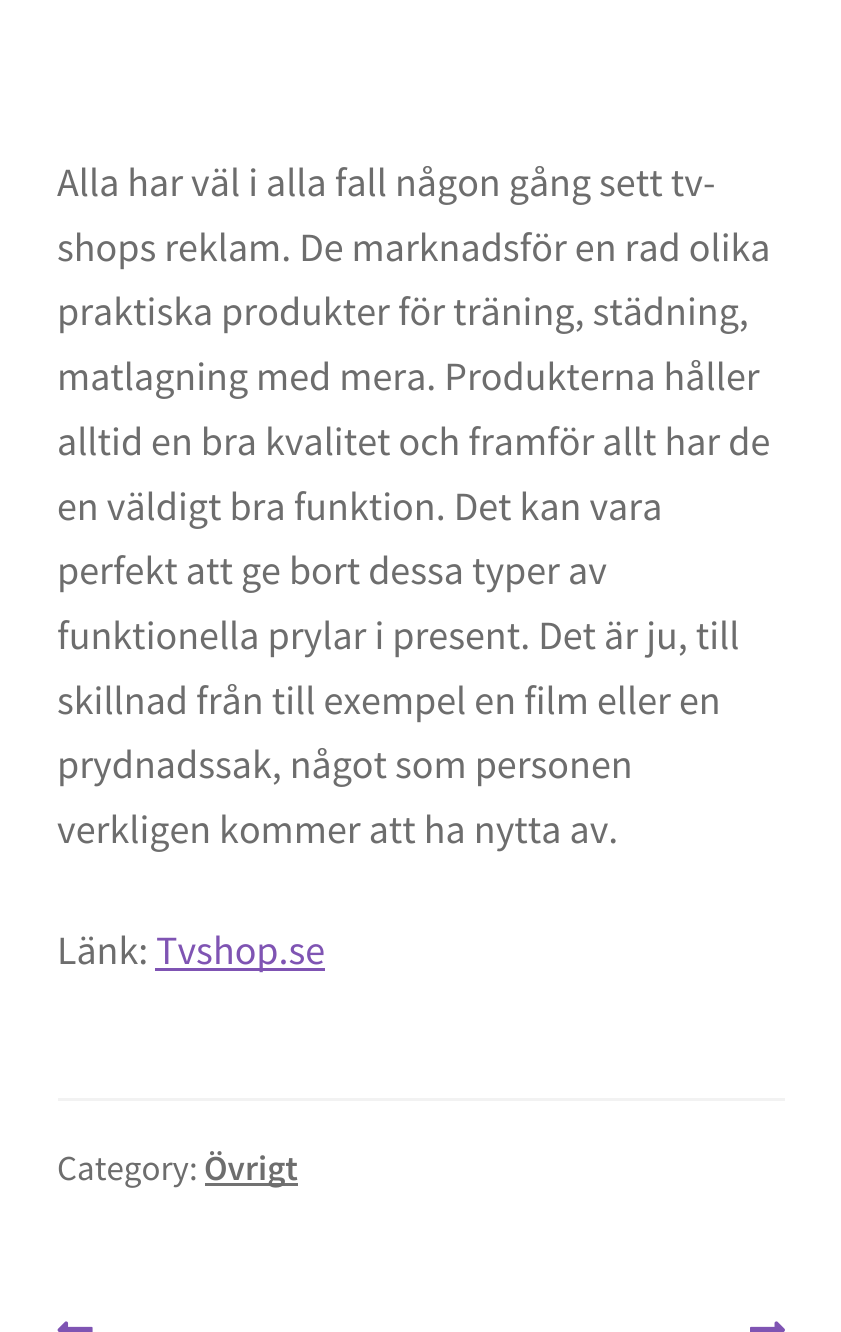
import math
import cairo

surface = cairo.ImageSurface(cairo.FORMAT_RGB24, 841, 1332)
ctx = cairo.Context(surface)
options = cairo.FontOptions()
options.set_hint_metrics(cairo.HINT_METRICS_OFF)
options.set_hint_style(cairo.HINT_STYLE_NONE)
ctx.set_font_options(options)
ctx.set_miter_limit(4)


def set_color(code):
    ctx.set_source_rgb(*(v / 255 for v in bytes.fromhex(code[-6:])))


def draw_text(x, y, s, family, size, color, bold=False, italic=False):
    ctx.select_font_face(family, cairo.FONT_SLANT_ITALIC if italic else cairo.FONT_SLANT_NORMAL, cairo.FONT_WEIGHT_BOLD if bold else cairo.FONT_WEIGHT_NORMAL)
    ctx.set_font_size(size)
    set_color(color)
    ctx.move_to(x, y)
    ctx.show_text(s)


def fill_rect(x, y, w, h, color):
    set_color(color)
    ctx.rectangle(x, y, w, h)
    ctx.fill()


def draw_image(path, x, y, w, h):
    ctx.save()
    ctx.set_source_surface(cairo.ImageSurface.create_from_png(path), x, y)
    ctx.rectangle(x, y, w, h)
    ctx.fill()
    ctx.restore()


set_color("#ffffff")
ctx.paint()
draw_text(57, 196, "Alla har väl i alla fall någon gång sett tv-", "Source Sans Pro", 40, "#6d6d6d")
draw_text(57, 261, "shops reklam. De marknadsför en rad olika", "Source Sans Pro", 40, "#6d6d6d")
draw_text(57, 325, "praktiska produkter för träning, städning,", "Source Sans Pro", 40, "#6d6d6d")
draw_text(57, 390, "matlagning med mera. Produkterna håller", "Source Sans Pro", 40, "#6d6d6d")
draw_text(57, 455, "alltid en bra kvalitet och framför allt har de", "Source Sans Pro", 40, "#6d6d6d")
draw_text(57, 520, "en väldigt bra funktion. Det kan vara", "Source Sans Pro", 40, "#6d6d6d")
draw_text(57, 584, "perfekt att ge bort dessa typer av", "Source Sans Pro", 40, "#6d6d6d")
draw_text(57, 649, "funktionella prylar i present. Det är ju, till", "Source Sans Pro", 40, "#6d6d6d")
draw_text(57, 714, "skillnad från till exempel en film eller en", "Source Sans Pro", 40, "#6d6d6d")
draw_text(57, 778, "prydnadssak, något som personen", "Source Sans Pro", 40, "#6d6d6d")
draw_text(57, 843, "verkligen kommer att ha nytta av.", "Source Sans Pro", 40, "#6d6d6d")
draw_text(57, 964, "Länk:", "Source Sans Pro", 40, "#6d6d6d")
fill_rect(155, 968, 170, 3, "#7f54b3")
draw_text(156, 964, "Tvshop.se", "Source Sans Pro", 40, "#7f54b3")
fill_rect(58, 1098, 727, 3, "#f2f2f2")
draw_text(57, 1180, "Category:", "Source Sans Pro", 35, "#6d6d6d")
fill_rect(205, 1183, 93, 3, "#727272")
draw_text(204, 1180, "Övrigt", "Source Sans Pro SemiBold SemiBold", 35, "#6d6d6d")
draw_image("assets/img1.png", 57, 1321, 36, 11)
draw_image("assets/img2.png", 750, 1321, 35, 11)
surface.write_to_png("output.png")
